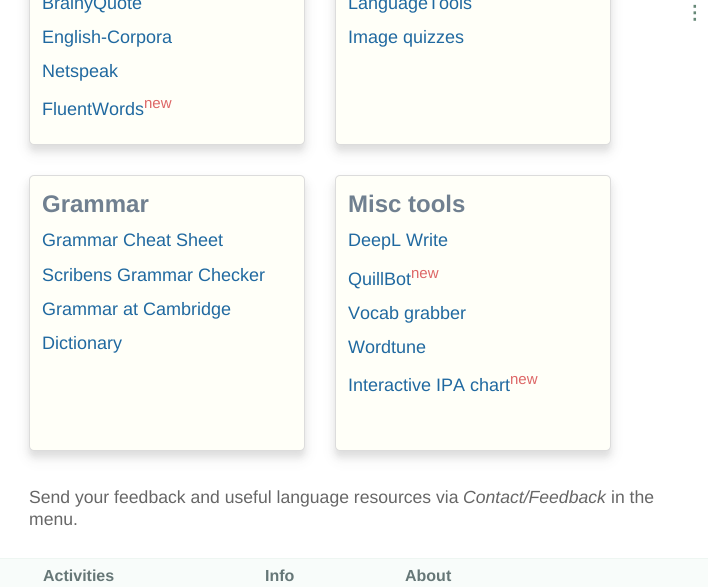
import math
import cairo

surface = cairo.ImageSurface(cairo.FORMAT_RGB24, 708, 587)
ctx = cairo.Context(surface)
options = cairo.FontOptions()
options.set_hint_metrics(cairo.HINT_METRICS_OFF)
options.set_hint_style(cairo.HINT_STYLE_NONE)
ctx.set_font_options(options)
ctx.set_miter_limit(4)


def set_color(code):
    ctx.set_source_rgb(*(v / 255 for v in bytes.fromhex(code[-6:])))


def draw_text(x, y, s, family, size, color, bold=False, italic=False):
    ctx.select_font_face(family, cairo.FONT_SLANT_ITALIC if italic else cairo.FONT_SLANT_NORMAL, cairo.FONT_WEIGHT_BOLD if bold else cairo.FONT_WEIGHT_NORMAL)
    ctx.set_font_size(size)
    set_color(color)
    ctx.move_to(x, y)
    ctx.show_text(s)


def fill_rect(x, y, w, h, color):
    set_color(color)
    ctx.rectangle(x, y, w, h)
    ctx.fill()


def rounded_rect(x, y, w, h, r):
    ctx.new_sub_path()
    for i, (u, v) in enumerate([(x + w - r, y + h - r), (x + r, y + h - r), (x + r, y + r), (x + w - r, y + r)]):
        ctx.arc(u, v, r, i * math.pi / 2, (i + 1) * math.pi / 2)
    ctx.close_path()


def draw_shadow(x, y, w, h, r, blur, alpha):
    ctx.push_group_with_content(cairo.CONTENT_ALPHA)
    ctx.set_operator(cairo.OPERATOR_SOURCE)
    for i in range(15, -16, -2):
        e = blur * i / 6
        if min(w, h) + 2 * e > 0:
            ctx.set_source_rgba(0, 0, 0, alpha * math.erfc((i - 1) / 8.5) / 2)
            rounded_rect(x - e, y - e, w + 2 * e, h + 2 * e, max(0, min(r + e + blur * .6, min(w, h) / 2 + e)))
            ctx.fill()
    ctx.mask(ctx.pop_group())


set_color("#ffffff")
ctx.paint()
set_color("#000000")
draw_shadow(29, -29, 276, 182, 5, 8, 0.05)
draw_shadow(29, -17, 276, 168, 5, 4, 0.1)
set_color("#fffff8")
rounded_rect(29.5, -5.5, 275, 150, 4.5)
ctx.fill_preserve()
set_color("#dcdcdc")
ctx.set_line_width(1)
ctx.stroke()
draw_text(42, 9, "BrainyQuote", "Liberation Sans", 18, "#2069a0")
draw_text(42, 43, "English-Corpora", "Liberation Sans", 18, "#2069a0")
draw_text(42, 77, "Netspeak", "Liberation Sans", 18, "#2069a0")
draw_text(42, 115, "FluentWords", "Liberation Sans", 18, "#2069a0")
draw_text(144, 108, "new", "Liberation Sans", 15, "#dd6666")
set_color("#000000")
draw_shadow(335, -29, 276, 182, 5, 8, 0.05)
draw_shadow(335, -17, 276, 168, 5, 4, 0.1)
set_color("#fffff8")
rounded_rect(335.5, -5.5, 275, 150, 4.5)
ctx.fill_preserve()
set_color("#dcdcdc")
ctx.stroke()
draw_text(348, 9, "LanguageTools", "Liberation Sans", 18, "#2069a0")
draw_text(348, 43, "Image quizzes", "Liberation Sans", 18, "#2069a0")
set_color("#000000")
draw_shadow(29, 183, 276, 276, 5, 8, 0.05)
draw_shadow(29, 181, 276, 276, 5, 4, 0.1)
set_color("#fffff8")
rounded_rect(29.5, 175.5, 275, 275, 4.5)
ctx.fill_preserve()
set_color("#dcdcdc")
ctx.stroke()
draw_text(42, 212, "Grammar", "Liberation Sans", 24, "#708090", bold=True)
draw_text(42, 246, "Grammar Cheat Sheet", "Liberation Sans", 18, "#2069a0")
draw_text(42, 281, "Scribens Grammar Checker", "Liberation Sans", 18, "#2069a0")
draw_text(42, 315, "Grammar at Cambridge", "Liberation Sans", 18, "#2069a0")
draw_text(42, 349, "Dictionary", "Liberation Sans", 18, "#2069a0")
set_color("#000000")
draw_shadow(335, 183, 276, 276, 5, 8, 0.05)
draw_shadow(335, 181, 276, 276, 5, 4, 0.1)
set_color("#fffff8")
rounded_rect(335.5, 175.5, 275, 275, 4.5)
ctx.fill_preserve()
set_color("#dcdcdc")
ctx.stroke()
draw_text(348, 212, "Misc tools", "Liberation Sans", 24, "#708090", bold=True)
draw_text(348, 246, "DeepL Write", "Liberation Sans", 18, "#2069a0")
draw_text(348, 285, "QuillBot", "Liberation Sans", 18, "#2069a0")
draw_text(411, 278, "new", "Liberation Sans", 15, "#dd6666")
draw_text(348, 319, "Vocab grabber", "Liberation Sans", 18, "#2069a0")
draw_text(348, 353, "Wordtune", "Liberation Sans", 18, "#2069a0")
draw_text(348, 391, "Interactive IPA chart", "Liberation Sans", 18, "#2069a0")
draw_text(510, 384, "new", "Liberation Sans", 15, "#dd6666")
draw_text(29, 503, "Send your feedback and useful language resources via", "Liberation Sans", 17.6, "#666666")
draw_text(463, 503, "Contact/Feedback", "Liberation Sans", 17.6, "#666666", italic=True)
draw_text(611, 503, "in the", "Liberation Sans", 17.6, "#666666")
draw_text(29, 525, "menu.", "Liberation Sans", 17.6, "#666666")
draw_text(685, 19, "⋮", "DejaVu Sans", 19, "#668877", bold=True)
fill_rect(0, 559, 708, 28, "#f8fcfa")
fill_rect(0, 558, 708, 1, "#eef6f2")
draw_text(43, 581, "Activities", "Liberation Sans", 16, "#667777", bold=True)
draw_text(265, 581, "Info", "Liberation Sans", 16, "#667777", bold=True)
draw_text(405, 581, "About", "Liberation Sans", 16, "#667777", bold=True)
surface.write_to_png("output.png")
